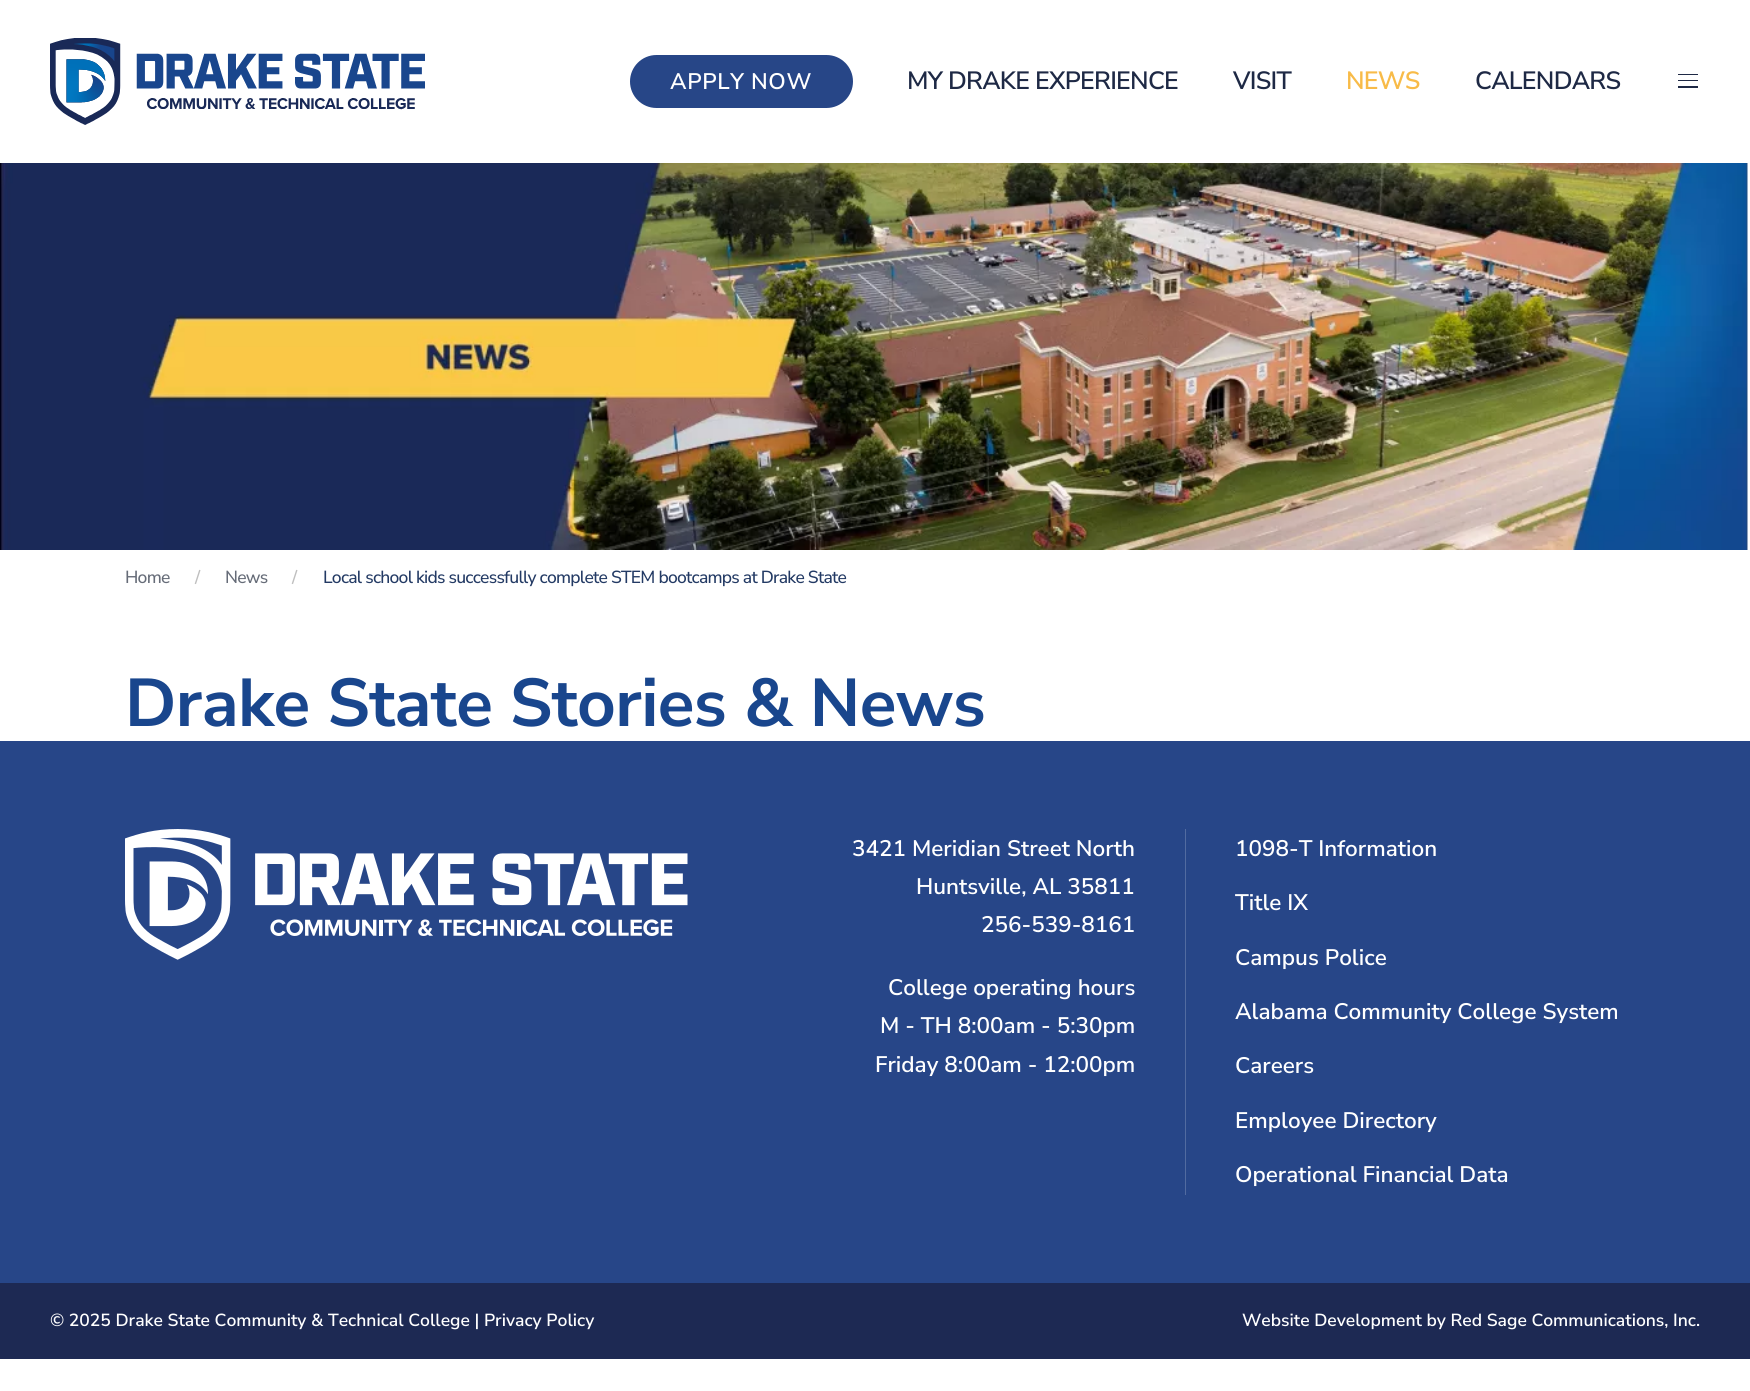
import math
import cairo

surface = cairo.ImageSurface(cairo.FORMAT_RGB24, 1750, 1391)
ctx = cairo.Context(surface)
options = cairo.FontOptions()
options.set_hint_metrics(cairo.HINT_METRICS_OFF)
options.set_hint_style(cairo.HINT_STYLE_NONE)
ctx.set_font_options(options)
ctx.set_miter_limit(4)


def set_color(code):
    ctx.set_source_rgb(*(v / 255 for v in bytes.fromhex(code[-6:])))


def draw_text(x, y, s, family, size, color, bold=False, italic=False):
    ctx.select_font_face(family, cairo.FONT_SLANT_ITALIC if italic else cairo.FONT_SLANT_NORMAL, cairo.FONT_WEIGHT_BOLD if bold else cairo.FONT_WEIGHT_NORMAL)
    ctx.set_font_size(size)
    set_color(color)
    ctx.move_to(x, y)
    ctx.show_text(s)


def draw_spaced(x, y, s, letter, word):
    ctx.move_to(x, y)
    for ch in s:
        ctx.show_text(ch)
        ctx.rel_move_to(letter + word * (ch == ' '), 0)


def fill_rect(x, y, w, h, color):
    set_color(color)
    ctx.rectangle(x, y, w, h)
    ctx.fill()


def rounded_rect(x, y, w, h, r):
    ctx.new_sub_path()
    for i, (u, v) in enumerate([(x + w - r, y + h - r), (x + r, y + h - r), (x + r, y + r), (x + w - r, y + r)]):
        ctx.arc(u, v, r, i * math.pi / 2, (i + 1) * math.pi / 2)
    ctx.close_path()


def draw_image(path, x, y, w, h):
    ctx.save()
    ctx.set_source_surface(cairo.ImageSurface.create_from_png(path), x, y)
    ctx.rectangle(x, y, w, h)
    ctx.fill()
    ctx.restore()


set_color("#ffffff")
ctx.paint()
draw_image("assets/img1.png", 50, 38, 375, 87)
set_color("#274687")
rounded_rect(630, 55, 223, 53, 26.5)
ctx.fill()
ctx.select_font_face("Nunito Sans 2 ExtraLight")
ctx.set_font_size(22.5)
set_color("#ffffff")
draw_spaced(670, 89, "APPLY NOW", 0.6, 0)
ctx.set_font_size(25)
set_color("#1e2945")
draw_spaced(907, 89, "MY DRAKE EXPERIENCE", -0.75, 0)
draw_spaced(1233, 89, "VISIT", -0.75, 0)
set_color("#f8bb48")
draw_spaced(1346, 89, "NEWS", -0.75, 0)
set_color("#1e2945")
draw_spaced(1475, 89, "CALENDARS", -0.75, 0)
fill_rect(1678, 74, 20, 1, "#1e2945")
fill_rect(1678, 80, 20, 1, "#1e2945")
fill_rect(1678, 86, 20, 2, "#1e2945")
draw_image("assets/img2.png", 0, 163, 1748, 387)
ctx.select_font_face("Nunito Sans ExtraLight")
ctx.set_font_size(17.5)
set_color("#666c78")
draw_spaced(125, 583, "Home", -0.75, 0)
draw_text(195, 583, "/", "Nunito Sans 2 ExtraLight", 17.5, "#bfbfbf")
ctx.select_font_face("Nunito Sans ExtraLight")
set_color("#666c78")
draw_spaced(225, 583, "News", -0.75, 0)
draw_text(292, 583, "/", "Nunito Sans 2 ExtraLight", 17.5, "#bfbfbf")
ctx.select_font_face("Nunito Sans ExtraLight")
set_color("#233a64")
draw_spaced(323, 583, "Local school kids successfully complete STEM bootcamps at Drake State", -0.75, 0)
ctx.select_font_face("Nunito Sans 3 ExtraLight")
ctx.set_font_size(67.5)
set_color("#19468d")
draw_spaced(125, 726, "Drake State Stories & News", -0.6, 0)
fill_rect(0, 741, 1750, 542, "#274688")
draw_image("assets/img3.png", 125, 829, 563, 131)
draw_text(852, 856, "3421 Meridian Street North", "Nunito Sans 2 ExtraLight", 22.5, "#ffffff")
draw_text(916, 894, "Huntsville, AL 35811", "Nunito Sans 2 ExtraLight", 22.5, "#ffffff")
draw_text(981, 932, "256-539-8161", "Nunito Sans 2 ExtraLight", 22.5, "#ffffff")
draw_text(888, 995, "College operating hours", "Nunito Sans 2 ExtraLight", 22.5, "#ffffff")
draw_text(880, 1033, "M - TH 8:00am - 5:30pm", "Nunito Sans 2 ExtraLight", 22.5, "#ffffff")
draw_text(875, 1072, "Friday 8:00am - 12:00pm", "Nunito Sans 2 ExtraLight", 22.5, "#ffffff")
fill_rect(1185, 829, 1, 366, "#526ba0")
draw_text(1235, 856, "1098-T Information", "Nunito Sans 2 ExtraLight", 22.5, "#ffffff")
draw_text(1235, 910, "Title IX", "Nunito Sans 2 ExtraLight", 22.5, "#ffffff")
draw_text(1235, 965, "Campus Police", "Nunito Sans 2 ExtraLight", 22.5, "#ffffff")
draw_text(1235, 1019, "Alabama Community College System", "Nunito Sans 2 ExtraLight", 22.5, "#ffffff")
draw_text(1235, 1073, "Careers", "Nunito Sans 2 ExtraLight", 22.5, "#ffffff")
draw_text(1235, 1128, "Employee Directory", "Nunito Sans 2 ExtraLight", 22.5, "#ffffff")
draw_text(1235, 1182, "Operational Financial Data", "Nunito Sans 2 ExtraLight", 22.5, "#ffffff")
fill_rect(0, 1283, 1750, 76, "#1d2953")
draw_text(50, 1326, "© 2025 Drake State Community & Technical College | Privacy Policy", "Nunito Sans 2 ExtraLight", 17.5, "#ffffff")
draw_text(1242, 1326, "Website Development by Red Sage Communications, Inc.", "Nunito Sans 2 ExtraLight", 17.5, "#ffffff")
surface.write_to_png("output.png")
